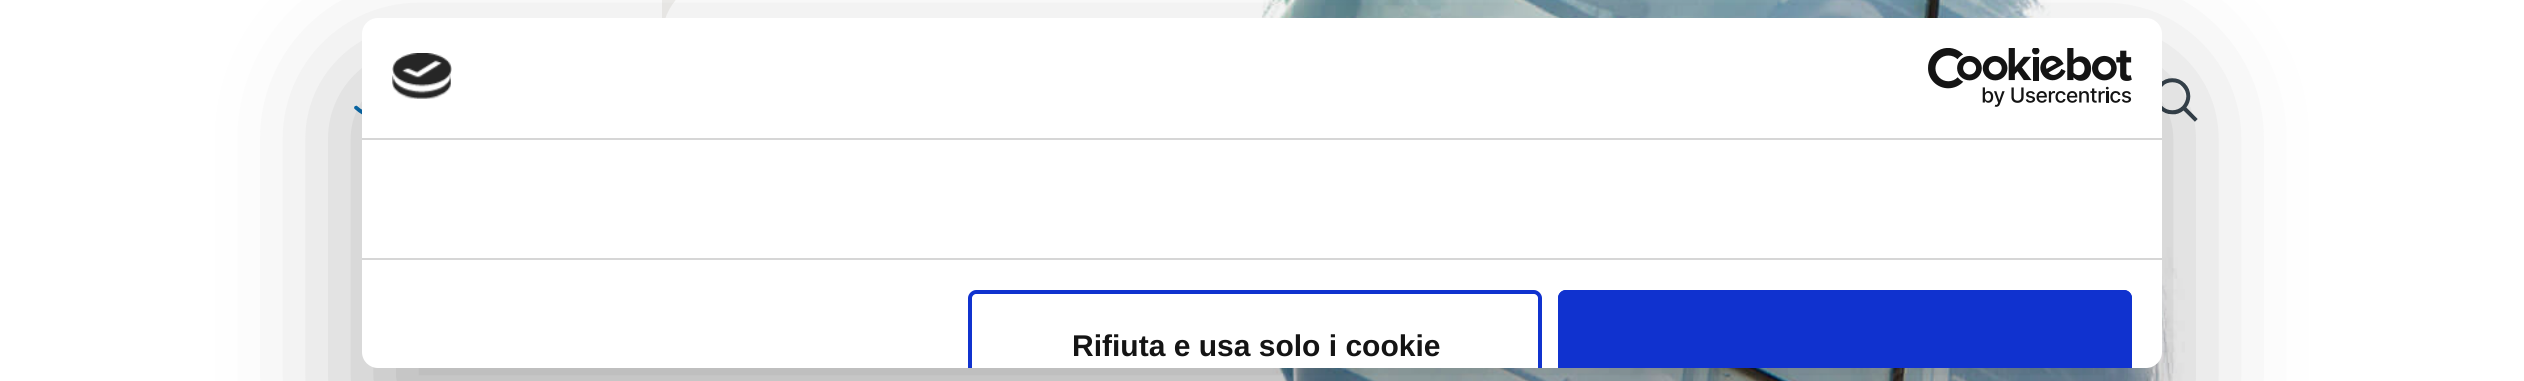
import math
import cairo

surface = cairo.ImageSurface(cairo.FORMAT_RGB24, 2524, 381)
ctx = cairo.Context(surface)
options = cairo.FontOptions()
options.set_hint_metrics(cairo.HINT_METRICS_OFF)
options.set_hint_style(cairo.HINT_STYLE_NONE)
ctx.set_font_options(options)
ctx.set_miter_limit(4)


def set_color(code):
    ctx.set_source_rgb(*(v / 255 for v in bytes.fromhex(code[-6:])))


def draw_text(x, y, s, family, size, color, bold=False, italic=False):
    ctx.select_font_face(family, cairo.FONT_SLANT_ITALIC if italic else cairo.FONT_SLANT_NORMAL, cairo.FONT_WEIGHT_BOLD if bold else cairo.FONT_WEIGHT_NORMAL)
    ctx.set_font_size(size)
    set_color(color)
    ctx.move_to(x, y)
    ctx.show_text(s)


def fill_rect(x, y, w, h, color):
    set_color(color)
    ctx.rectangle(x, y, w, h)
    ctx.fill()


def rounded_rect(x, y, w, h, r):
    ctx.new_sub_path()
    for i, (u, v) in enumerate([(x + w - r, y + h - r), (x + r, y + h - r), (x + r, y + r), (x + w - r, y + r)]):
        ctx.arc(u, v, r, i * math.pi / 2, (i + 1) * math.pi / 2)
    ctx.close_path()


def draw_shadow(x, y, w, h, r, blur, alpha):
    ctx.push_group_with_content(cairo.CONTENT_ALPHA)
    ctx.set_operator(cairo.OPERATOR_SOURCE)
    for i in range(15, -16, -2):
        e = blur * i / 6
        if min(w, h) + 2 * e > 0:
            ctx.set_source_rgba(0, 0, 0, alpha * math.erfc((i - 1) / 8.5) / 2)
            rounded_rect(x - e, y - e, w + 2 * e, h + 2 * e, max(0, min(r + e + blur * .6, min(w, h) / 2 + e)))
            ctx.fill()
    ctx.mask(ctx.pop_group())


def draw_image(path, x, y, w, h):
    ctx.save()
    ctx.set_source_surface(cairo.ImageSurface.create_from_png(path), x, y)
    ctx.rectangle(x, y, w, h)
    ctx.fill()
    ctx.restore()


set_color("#ffffff")
ctx.paint()
ctx.set_source_rgba(0.816, 0.804, 0.78, 0.3)
ctx.new_path()
ctx.move_to(722, -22)
ctx.line_to(1802, -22)
ctx.curve_to(1835, -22, 1862, 5, 1862, 38)
ctx.line_to(1862, 0)
ctx.line_to(662, 0)
ctx.line_to(662, 38)
ctx.curve_to(662, 5, 689, -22, 722, -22)
ctx.close_path()
ctx.fill()
draw_image("assets/img1.png", 354, 105, 8, 10)
draw_image("assets/img3.png", 1220, 0, 965, 381)
draw_image("assets/img2.png", 2162, 78, 36, 44)
set_color("#000000")
draw_shadow(362, 82, 1800, 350, 16, 68, 0.3)
set_color("#ffffff")
rounded_rect(362, 18, 1800, 350, 16)
ctx.fill()
fill_rect(362, 138, 1800, 2, "#d6d6d6")
draw_image("assets/img4.png", 392, 53, 60, 46)
draw_image("assets/img5.png", 1928, 48, 204, 59)
fill_rect(362, 258, 1800, 2, "#d6d6d6")
set_color("#1032cf")
ctx.new_path()
ctx.move_to(976, 290)
ctx.curve_to(972, 290, 968, 294, 968, 298)
ctx.line_to(968, 368)
ctx.line_to(972, 368)
ctx.line_to(972, 298)
ctx.curve_to(972, 296, 974, 294, 976, 294)
ctx.line_to(1534, 294)
ctx.curve_to(1536, 294, 1538, 296, 1538, 298)
ctx.line_to(1538, 368)
ctx.line_to(1542, 368)
ctx.line_to(1542, 298)
ctx.curve_to(1542, 294, 1538, 290, 1534, 290)
ctx.close_path()
ctx.fill()
draw_text(1072, 356, "Rifiuta e usa solo i cookie", "Liberation Sans", 30, "#141414", bold=True)
set_color("#1032cf")
ctx.new_path()
ctx.move_to(1566, 290)
ctx.line_to(2124, 290)
ctx.curve_to(2128.5, 290, 2132, 293.5, 2132, 298)
ctx.line_to(2132, 368)
ctx.line_to(1558, 368)
ctx.line_to(1558, 298)
ctx.curve_to(1558, 293.5, 1561.5, 290, 1566, 290)
ctx.close_path()
ctx.fill()
ctx.new_path()
ctx.move_to(1566, 290)
ctx.curve_to(1562, 290, 1558, 294, 1558, 298)
ctx.line_to(1558, 368)
ctx.line_to(1562, 368)
ctx.line_to(1562, 298)
ctx.curve_to(1562, 296, 1564, 294, 1566, 294)
ctx.line_to(2124, 294)
ctx.curve_to(2126, 294, 2128, 296, 2128, 298)
ctx.line_to(2128, 368)
ctx.line_to(2132, 368)
ctx.line_to(2132, 298)
ctx.curve_to(2132, 294, 2128, 290, 2124, 290)
ctx.close_path()
ctx.fill()
surface.write_to_png("output.png")
